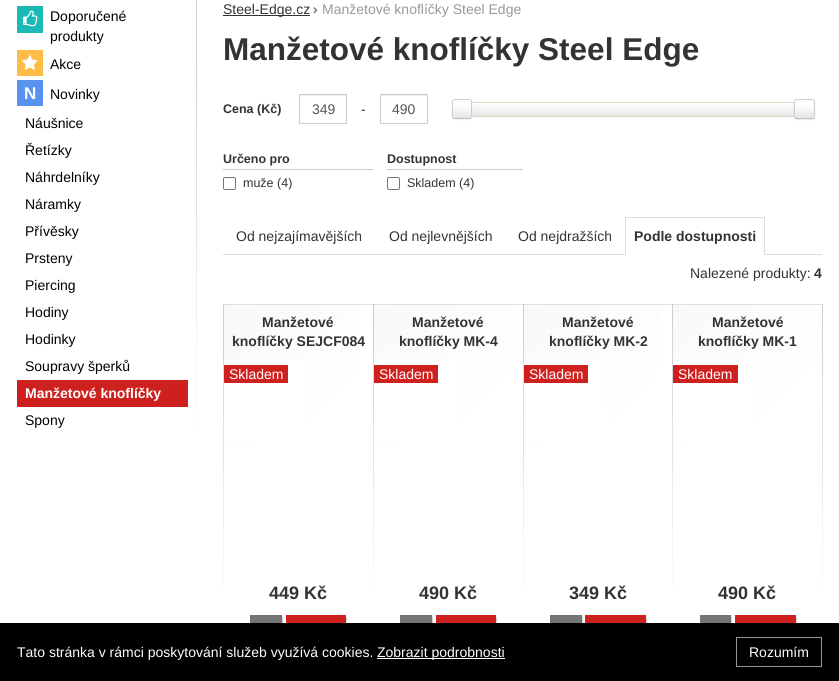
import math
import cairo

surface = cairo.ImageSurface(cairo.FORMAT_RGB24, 839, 681)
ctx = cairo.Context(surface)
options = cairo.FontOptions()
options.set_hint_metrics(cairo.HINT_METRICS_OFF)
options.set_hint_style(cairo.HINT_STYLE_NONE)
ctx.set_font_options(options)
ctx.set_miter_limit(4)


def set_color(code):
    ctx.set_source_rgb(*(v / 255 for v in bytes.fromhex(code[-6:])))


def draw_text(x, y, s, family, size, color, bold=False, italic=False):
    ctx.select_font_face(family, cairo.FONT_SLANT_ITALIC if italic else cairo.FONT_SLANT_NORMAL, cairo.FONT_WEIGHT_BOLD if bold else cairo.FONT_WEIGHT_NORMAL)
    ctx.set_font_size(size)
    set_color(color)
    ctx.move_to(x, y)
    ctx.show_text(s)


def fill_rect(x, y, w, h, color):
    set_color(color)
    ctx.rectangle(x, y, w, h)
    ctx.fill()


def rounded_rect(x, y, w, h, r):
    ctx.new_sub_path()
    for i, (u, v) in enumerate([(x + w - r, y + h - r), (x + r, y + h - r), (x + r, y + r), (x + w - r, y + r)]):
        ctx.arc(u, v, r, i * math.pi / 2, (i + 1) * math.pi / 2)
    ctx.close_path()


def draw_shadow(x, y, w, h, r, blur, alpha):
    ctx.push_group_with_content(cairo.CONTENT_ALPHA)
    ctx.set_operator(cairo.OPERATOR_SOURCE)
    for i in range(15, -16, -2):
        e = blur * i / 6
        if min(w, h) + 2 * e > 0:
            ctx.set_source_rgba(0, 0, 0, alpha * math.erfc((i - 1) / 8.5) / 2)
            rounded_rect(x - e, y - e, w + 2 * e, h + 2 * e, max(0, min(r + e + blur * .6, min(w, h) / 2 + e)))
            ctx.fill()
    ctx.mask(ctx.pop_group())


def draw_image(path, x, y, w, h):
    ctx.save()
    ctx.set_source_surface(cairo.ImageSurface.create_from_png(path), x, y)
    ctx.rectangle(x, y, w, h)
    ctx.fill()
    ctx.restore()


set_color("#ffffff")
ctx.paint()
fill_rect(17, 6, 26, 27, "#1ab9b5")
draw_image("assets/img1.png", 23, 10, 15, 17)
draw_text(50, 21, "Doporučené", "Liberation Sans", 14, "#000000")
draw_text(50, 41, "produkty", "Liberation Sans", 14, "#000000")
fill_rect(17, 50, 26, 26, "#ffbc46")
draw_image("assets/img2.png", 22, 54, 16, 16)
draw_text(50, 69, "Akce", "Liberation Sans", 14, "#000000")
fill_rect(17, 80, 26, 26, "#5894ef")
draw_text(24, 99, "N", "Liberation Sans", 17, "#ffffff", bold=True)
draw_text(50, 99, "Novinky", "Liberation Sans", 14, "#000000")
draw_text(25, 128, "Náušnice", "Liberation Sans", 14, "#000000")
draw_text(25, 155, "Řetízky", "Liberation Sans", 14, "#000000")
draw_text(25, 182, "Náhrdelníky", "Liberation Sans", 14, "#000000")
draw_text(25, 209, "Náramky", "Liberation Sans", 14, "#000000")
draw_text(25, 236, "Přívěsky", "Liberation Sans", 14, "#000000")
draw_text(25, 263, "Prsteny", "Liberation Sans", 14, "#000000")
draw_text(25, 290, "Piercing", "Liberation Sans", 14, "#000000")
draw_text(25, 317, "Hodiny", "Liberation Sans", 14, "#000000")
draw_text(25, 344, "Hodinky", "Liberation Sans", 14, "#000000")
draw_text(25, 371, "Soupravy šperků", "Liberation Sans", 14, "#000000")
fill_rect(17, 380, 171, 27, "#ce211f")
draw_text(25, 398, "Manžetové knoflíčky", "Liberation Sans", 14, "#ffffff", bold=True)
draw_text(25, 425, "Spony", "Liberation Sans", 14, "#000000")
gradient = cairo.LinearGradient(196, -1, 197, 451)
gradient.add_color_stop_rgba(0, 0.8, 0.8, 0.8, 1)
gradient.add_color_stop_rgba(1, 1, 1, 1, 1)
ctx.set_source(gradient)
ctx.rectangle(196, 0, 1, 429)
ctx.fill()
fill_rect(223, 15, 87, 1, "#333333")
draw_text(223, 14, "Steel-Edge.cz", "Liberation Sans", 14, "#333333")
draw_image("assets/img3.png", 313, 7, 5, 7)
draw_text(322, 14, "Manžetové knoflíčky Steel Edge", "Liberation Sans", 14, "#999999")
draw_text(223, 60, "Manžetové knoflíčky Steel Edge", "Liberation Sans", 31.5, "#333333", bold=True)
draw_text(223, 113, "Cena (Kč)", "Liberation Sans", 12.5, "#333333", bold=True)
fill_rect(300, 95, 46, 1, "#ececec")
ctx.rectangle(299.5, 94.5, 47, 29)
set_color("#cccccc")
ctx.set_line_width(1)
ctx.stroke()
draw_text(312, 114, "349", "Liberation Sans", 14, "#555555")
draw_text(361, 114, "-", "Liberation Sans", 14, "#333333")
fill_rect(381, 95, 46, 1, "#ececec")
ctx.rectangle(380.5, 94.5, 47, 29)
set_color("#cccccc")
ctx.stroke()
draw_text(392, 114, "490", "Liberation Sans", 14, "#555555")
ctx.rectangle(460.5, 102.5, 343, 14)
set_color("#dfd9c3")
ctx.stroke()
gradient = cairo.LinearGradient(632, 103, 632, 116)
gradient.add_color_stop_rgba(0, 1, 1, 1, 1)
gradient.add_color_stop_rgba(1, 0.902, 0.902, 0.902, 1)
ctx.set_source(gradient)
ctx.rectangle(471, 104, 323, 12)
ctx.fill()
set_color("#000000")
draw_shadow(452, 100, 20, 20, 3, 1, 0.05)
gradient = cairo.LinearGradient(462, 100, 462, 118)
gradient.add_color_stop_rgba(0, 1, 1, 1, 1)
gradient.add_color_stop_rgba(0.25, 1, 1, 1, 1)
gradient.add_color_stop_rgba(1, 0.902, 0.902, 0.902, 1)
ctx.set_source(gradient)
ctx.rectangle(453, 100, 18, 18)
ctx.fill()
ctx.new_path()
ctx.move_to(471, 118)
ctx.curve_to(469.5, 119, 464, 118.5, 462, 118.5)
ctx.curve_to(460, 118.5, 454.5, 119, 453, 118)
set_color("#bbbbbb")
ctx.stroke()
ctx.new_path()
ctx.move_to(453, 118)
ctx.curve_to(452, 116.5, 452.5, 111, 452.5, 109)
ctx.curve_to(452.5, 98, 451, 99.5, 462, 99.5)
ctx.curve_to(473, 99.5, 471.5, 98, 471.5, 109)
ctx.curve_to(471.5, 111, 472, 116.5, 471, 118)
set_color("#cccccc")
ctx.stroke()
set_color("#000000")
draw_shadow(794, 100, 21, 20, 3, 1, 0.05)
set_color("#e6e6e6")
rounded_rect(794, 99, 21, 20, 3)
ctx.fill()
gradient = cairo.LinearGradient(805, 100, 805, 118)
gradient.add_color_stop_rgba(0, 1, 1, 1, 1)
gradient.add_color_stop_rgba(0.25, 1, 1, 1, 1)
gradient.add_color_stop_rgba(1, 0.902, 0.902, 0.902, 1)
ctx.set_source(gradient)
ctx.rectangle(795, 100, 19, 17)
ctx.fill()
ctx.new_path()
ctx.move_to(814, 118)
ctx.curve_to(812.5, 119.5, 806.5, 118.5, 804.5, 118.5)
ctx.curve_to(802.5, 118.5, 796.5, 119.5, 795, 118)
set_color("#bbbbbb")
ctx.stroke()
ctx.new_path()
ctx.move_to(795, 118)
ctx.curve_to(794, 116.5, 794.5, 111, 794.5, 109)
ctx.curve_to(794.5, 98, 793.5, 99.5, 804.5, 99.5)
ctx.curve_to(815.5, 99.5, 814.5, 98, 814.5, 109)
ctx.curve_to(814.5, 111, 815, 116.5, 814, 118)
set_color("#cccccc")
ctx.stroke()
draw_text(223, 163, "Určeno pro", "Liberation Sans", 12.5, "#333333", bold=True)
fill_rect(223, 169, 150, 1, "#cccccc")
rounded_rect(223.5, 177.5, 12, 12, 1.5)
set_color("#767676")
ctx.stroke()
draw_text(243, 187, "muže (4)", "Liberation Sans", 12.5, "#333333")
draw_text(387, 163, "Dostupnost", "Liberation Sans", 12.5, "#333333", bold=True)
fill_rect(387, 169, 136, 1, "#cccccc")
rounded_rect(387.5, 177.5, 12, 12, 1.5)
set_color("#767676")
ctx.stroke()
draw_text(407, 187, "Skladem (4)", "Liberation Sans", 12.5, "#333333")
draw_text(236, 241, "Od nejzajímavějších", "Liberation Sans", 14, "#333333")
draw_text(389, 241, "Od nejlevnějších", "Liberation Sans", 14, "#333333")
draw_text(518, 241, "Od nejdražších", "Liberation Sans", 14, "#333333")
fill_rect(223, 254, 599, 1, "#dddddd")
fill_rect(625, 254, 140, 1, "#ffffff")
fill_rect(625, 217, 140, 1, "#dddddd")
ctx.new_path()
ctx.move_to(765, 217)
ctx.line_to(765, 255)
ctx.line_to(764, 254)
ctx.line_to(764, 218)
ctx.close_path()
ctx.fill()
ctx.new_path()
ctx.move_to(625, 255)
ctx.line_to(625, 217)
ctx.line_to(626, 218)
ctx.line_to(626, 254)
ctx.close_path()
ctx.fill()
draw_text(634, 241, "Podle dostupnosti", "Liberation Sans", 14, "#333333", bold=True)
draw_text(690, 278, "Nalezené produkty:", "Liberation Sans", 14, "#333333")
draw_text(814, 278, "4", "Liberation Sans", 14, "#333333", bold=True)
gradient = cairo.LinearGradient(170, 357, 426, 612)
gradient.add_color_stop_rgba(0, 0.973, 0.973, 0.973, 1)
gradient.add_color_stop_rgba(0.42, 1, 1, 1, 1)
gradient.add_color_stop_rgba(0.5, 1, 1, 1, 1)
ctx.set_source(gradient)
ctx.rectangle(223, 305, 136, 137)
ctx.fill()
gradient = cairo.LinearGradient(223, 304, 224, 611)
gradient.add_color_stop_rgba(0, 0.8, 0.8, 0.8, 1)
gradient.add_color_stop_rgba(1, 1, 1, 1, 1)
ctx.set_source(gradient)
ctx.rectangle(223, 304, 1, 292)
ctx.fill()
fill_rect(224, 304, 149, 1, "#e0e0e0")
draw_text(262, 327, "Manžetové", "Liberation Sans", 14, "#333333", bold=True)
draw_text(232, 346, "knoflíčky SEJCF084", "Liberation Sans", 14, "#333333", bold=True)
fill_rect(224, 360, 80, 81, "#ffffff")
fill_rect(224, 365, 64, 18, "#ce211f")
draw_text(229, 379, "Skladem", "Liberation Sans", 14, "#ffffff")
draw_text(269, 599, "449 Kč", "Liberation Sans", 18, "#333333", bold=True)
set_color("#000000")
draw_shadow(252, 617, 30, 38, 0, 1, 0.5)
fill_rect(250, 615, 32, 8, "#757575")
set_color("#000000")
draw_shadow(288, 618, 58, 38, 0, 1, 0.5)
fill_rect(286, 615, 60, 8, "#ce211f")
gradient = cairo.LinearGradient(320, 357, 576, 612)
gradient.add_color_stop_rgba(0, 0.973, 0.973, 0.973, 1)
gradient.add_color_stop_rgba(0.42, 1, 1, 1, 0.84)
gradient.add_color_stop_rgba(0.5, 1, 1, 1, 1)
ctx.set_source(gradient)
ctx.rectangle(373, 305, 143, 138)
ctx.fill()
gradient = cairo.LinearGradient(374, 304, 374, 611)
gradient.add_color_stop_rgba(0, 0.8, 0.8, 0.8, 1)
gradient.add_color_stop_rgba(1, 1, 1, 1, 1)
ctx.set_source(gradient)
ctx.rectangle(373, 304, 1, 292)
ctx.fill()
fill_rect(374, 304, 149, 1, "#e0e0e0")
draw_text(412, 327, "Manžetové", "Liberation Sans", 14, "#333333", bold=True)
draw_text(399, 346, "knoflíčky MK-4", "Liberation Sans", 14, "#333333", bold=True)
fill_rect(374, 360, 82, 82, "#ffffff")
fill_rect(374, 365, 64, 18, "#ce211f")
draw_text(379, 379, "Skladem", "Liberation Sans", 14, "#ffffff")
draw_text(419, 599, "490 Kč", "Liberation Sans", 18, "#333333", bold=True)
set_color("#000000")
draw_shadow(402, 617, 30, 38, 0, 1, 0.5)
fill_rect(400, 615, 32, 8, "#757575")
set_color("#000000")
draw_shadow(438, 618, 58, 38, 0, 1, 0.5)
fill_rect(436, 615, 60, 8, "#ce211f")
gradient = cairo.LinearGradient(470, 357, 725, 612)
gradient.add_color_stop_rgba(0, 0.973, 0.973, 0.973, 1)
gradient.add_color_stop_rgba(0.42, 1, 1, 1, 0.84)
gradient.add_color_stop_rgba(0.5, 1, 1, 1, 1)
ctx.set_source(gradient)
ctx.rectangle(523, 305, 138, 138)
ctx.fill()
gradient = cairo.LinearGradient(524, 304, 524, 611)
gradient.add_color_stop_rgba(0, 0.8, 0.8, 0.8, 1)
gradient.add_color_stop_rgba(1, 1, 1, 1, 1)
ctx.set_source(gradient)
ctx.rectangle(523, 304, 1, 292)
ctx.fill()
fill_rect(524, 304, 148, 1, "#e0e0e0")
draw_text(562, 327, "Manžetové", "Liberation Sans", 14, "#333333", bold=True)
draw_text(549, 346, "knoflíčky MK-2", "Liberation Sans", 14, "#333333", bold=True)
fill_rect(524, 360, 82, 82, "#ffffff")
fill_rect(524, 365, 64, 18, "#ce211f")
draw_text(529, 379, "Skladem", "Liberation Sans", 14, "#ffffff")
draw_text(569, 599, "349 Kč", "Liberation Sans", 18, "#333333", bold=True)
set_color("#000000")
draw_shadow(552, 617, 30, 38, 0, 1, 0.5)
fill_rect(550, 615, 32, 8, "#757575")
set_color("#000000")
draw_shadow(587, 618, 59, 38, 0, 1, 0.5)
fill_rect(585, 615, 61, 8, "#ce211f")
gradient = cairo.LinearGradient(619, 357, 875, 612)
gradient.add_color_stop_rgba(0, 0.973, 0.973, 0.973, 1)
gradient.add_color_stop_rgba(0.42, 1, 1, 1, 0.84)
gradient.add_color_stop_rgba(0.5, 1, 1, 1, 1)
ctx.set_source(gradient)
ctx.rectangle(672, 305, 143, 138)
ctx.fill()
gradient = cairo.LinearGradient(823, 304, 823, 611)
gradient.add_color_stop_rgba(0, 0.8, 0.8, 0.8, 1)
gradient.add_color_stop_rgba(1, 1, 1, 1, 1)
ctx.set_source(gradient)
ctx.rectangle(822, 304, 1, 292)
ctx.fill()
gradient = cairo.LinearGradient(673, 304, 673, 611)
gradient.add_color_stop_rgba(0, 0.8, 0.8, 0.8, 1)
gradient.add_color_stop_rgba(1, 1, 1, 1, 1)
ctx.set_source(gradient)
ctx.rectangle(672, 304, 1, 292)
ctx.fill()
fill_rect(673, 304, 149, 1, "#e0e0e0")
draw_text(712, 327, "Manžetové", "Liberation Sans", 14, "#333333", bold=True)
draw_text(698, 346, "knoflíčky MK-1", "Liberation Sans", 14, "#333333", bold=True)
fill_rect(673, 360, 82, 82, "#ffffff")
fill_rect(673, 365, 65, 18, "#ce211f")
draw_text(678, 379, "Skladem", "Liberation Sans", 14, "#ffffff")
draw_text(718, 599, "490 Kč", "Liberation Sans", 18, "#333333", bold=True)
set_color("#000000")
draw_shadow(702, 617, 29, 38, 0, 1, 0.5)
fill_rect(700, 615, 31, 8, "#757575")
set_color("#000000")
draw_shadow(737, 618, 59, 38, 0, 1, 0.5)
fill_rect(735, 615, 61, 8, "#ce211f")
fill_rect(0, 623, 839, 58, "#000000")
draw_text(17, 657, "Tato stránka v rámci poskytování služeb využívá cookies.", "Liberation Sans", 14, "#ffffff")
fill_rect(377, 658, 128, 1, "#ffffff")
draw_text(377, 657, "Zobrazit podrobnosti", "Liberation Sans", 14, "#ffffff")
ctx.rectangle(736.5, 637.5, 85, 29)
set_color("#999999")
ctx.stroke()
draw_text(749, 657, "Rozumím", "Liberation Sans", 14, "#ffffff")
surface.write_to_png("output.png")
